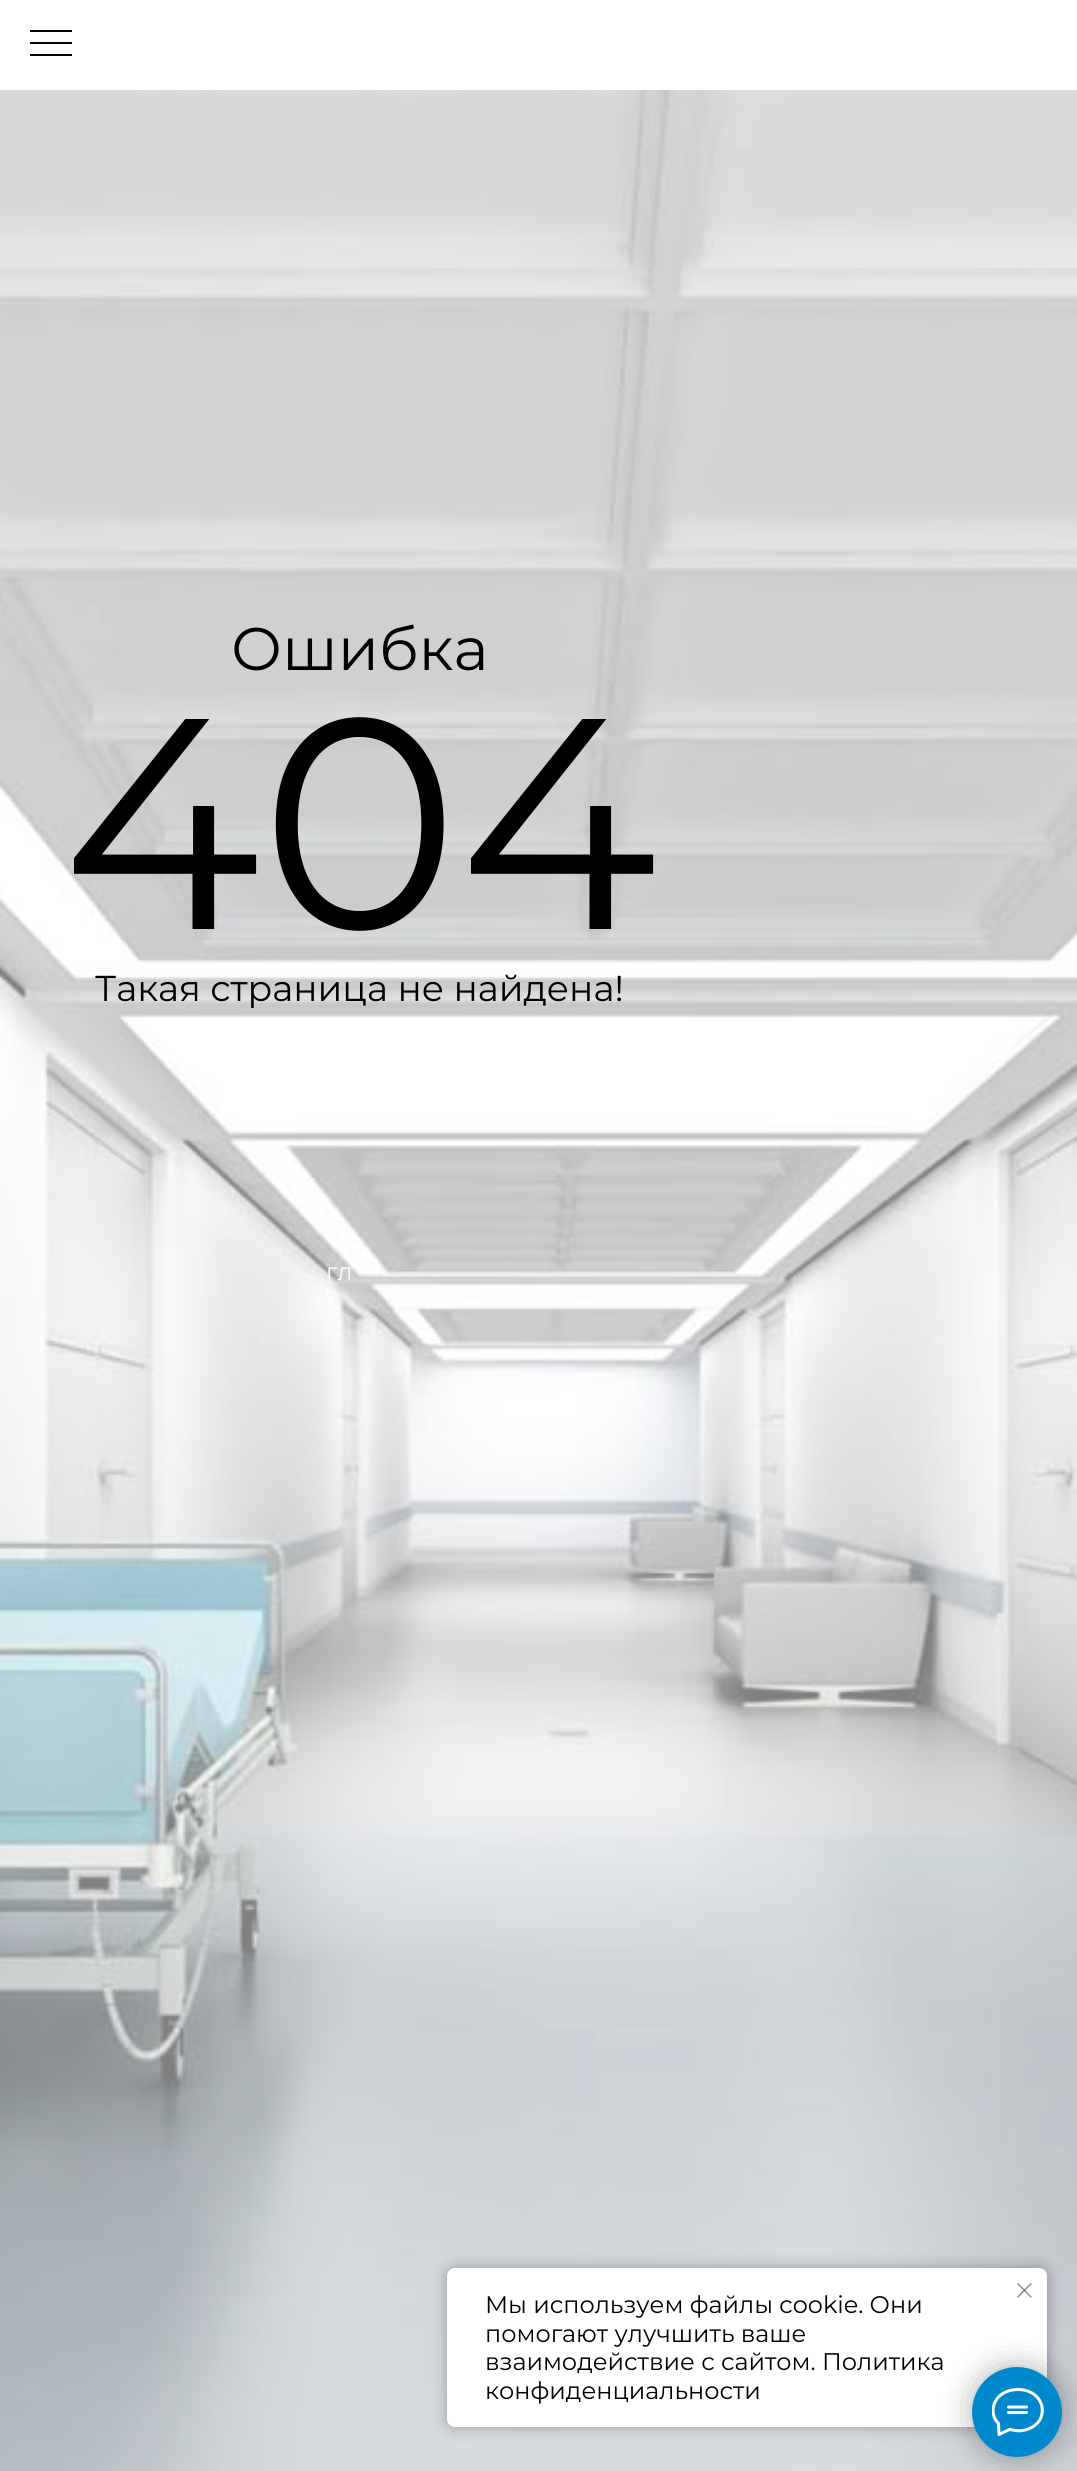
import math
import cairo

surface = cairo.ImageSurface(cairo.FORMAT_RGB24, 1077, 2471)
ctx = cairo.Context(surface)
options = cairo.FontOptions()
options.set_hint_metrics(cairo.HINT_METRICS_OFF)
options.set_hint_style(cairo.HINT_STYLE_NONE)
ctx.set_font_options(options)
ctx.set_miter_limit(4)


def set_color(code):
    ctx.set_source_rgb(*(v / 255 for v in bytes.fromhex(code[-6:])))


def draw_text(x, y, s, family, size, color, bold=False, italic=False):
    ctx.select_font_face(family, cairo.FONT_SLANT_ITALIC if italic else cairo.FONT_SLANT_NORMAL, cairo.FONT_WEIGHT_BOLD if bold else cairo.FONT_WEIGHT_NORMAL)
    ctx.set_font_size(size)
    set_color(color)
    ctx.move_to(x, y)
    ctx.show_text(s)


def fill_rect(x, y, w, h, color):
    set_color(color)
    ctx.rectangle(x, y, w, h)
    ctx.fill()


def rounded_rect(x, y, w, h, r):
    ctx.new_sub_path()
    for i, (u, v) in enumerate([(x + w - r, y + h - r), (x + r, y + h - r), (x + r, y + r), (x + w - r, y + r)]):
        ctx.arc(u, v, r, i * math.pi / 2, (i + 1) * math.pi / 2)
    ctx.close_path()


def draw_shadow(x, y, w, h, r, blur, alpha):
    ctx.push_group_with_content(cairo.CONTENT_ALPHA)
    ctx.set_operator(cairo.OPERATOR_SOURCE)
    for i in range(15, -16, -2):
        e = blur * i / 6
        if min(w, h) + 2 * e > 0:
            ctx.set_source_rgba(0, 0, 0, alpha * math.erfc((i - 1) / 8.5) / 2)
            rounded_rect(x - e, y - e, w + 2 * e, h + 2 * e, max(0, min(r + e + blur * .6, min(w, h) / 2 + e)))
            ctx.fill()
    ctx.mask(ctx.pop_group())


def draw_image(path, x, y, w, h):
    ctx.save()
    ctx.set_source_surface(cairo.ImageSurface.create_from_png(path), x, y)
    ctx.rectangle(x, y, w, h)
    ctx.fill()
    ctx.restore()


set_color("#ffffff")
ctx.paint()
fill_rect(30, 30, 42, 2, "#000000")
fill_rect(30, 42, 42, 2, "#000000")
fill_rect(30, 54, 42, 2, "#000000")
draw_image("assets/img1.png", 0, 90, 1077, 2381)
draw_text(231, 670, "Ошибка", "Montserrat", 60, "#000000")
draw_text(62, 929, "404", "Montserrat", 300, "#000000")
draw_text(95, 1001, "Такая страница не найдена!", "Montserrat", 36, "#000000")
draw_text(326, 1280, "гл", "Montserrat", 24, "#ffffff")
set_color("#000000")
draw_shadow(447, 2268, 600, 159, 8, 7.5, 0.3)
set_color("#ffffff")
rounded_rect(447, 2268, 600, 159, 8)
ctx.fill()
draw_image("assets/img2.png", 1017, 2283, 15, 15)
draw_text(485, 2313, "Мы используем файлы cookie. Они", "Montserrat", 24, "#000000")
draw_text(485, 2342, "помогают улучшить ваше", "Montserrat", 24, "#000000")
draw_text(485, 2370, "взаимодействие с сайтом. Политика", "Montserrat", 24, "#000000")
draw_text(485, 2399, "конфиденциальности", "Montserrat", 24, "#000000")
set_color("#000000")
draw_shadow(972, 2367, 90, 90, 45, 15, 0.3)
set_color("#0088cc")
ctx.arc(1017, 2412, 45, 0, 2 * math.pi)
ctx.fill()
ctx.save()
ctx.rectangle(992, 2388, 52, 48)
ctx.clip()
ctx.new_path()
ctx.move_to(1008.5, 2407)
ctx.line_to(1026.5, 2407)
ctx.move_to(1008.5, 2412.5)
ctx.line_to(1026.5, 2412.5)
ctx.move_to(998.5, 2423.5)
ctx.curve_to(990.5, 2415.5, 991.5, 2403, 1000, 2395.5)
ctx.curve_to(1005, 2391.5, 1011.5, 2389.5, 1018, 2389.5)
ctx.curve_to(1047, 2389.5, 1052, 2425.5, 1022.5, 2430.5)
ctx.curve_to(1017.5, 2431.5, 1014.5, 2430, 1009.5, 2429.5)
ctx.line_to(999, 2434.5)
ctx.close_path()
set_color("#ffffff")
ctx.set_line_width(3)
ctx.set_line_cap(cairo.LINE_CAP_ROUND)
ctx.set_line_join(cairo.LINE_JOIN_ROUND)
ctx.stroke()
ctx.restore()
surface.write_to_png("output.png")
